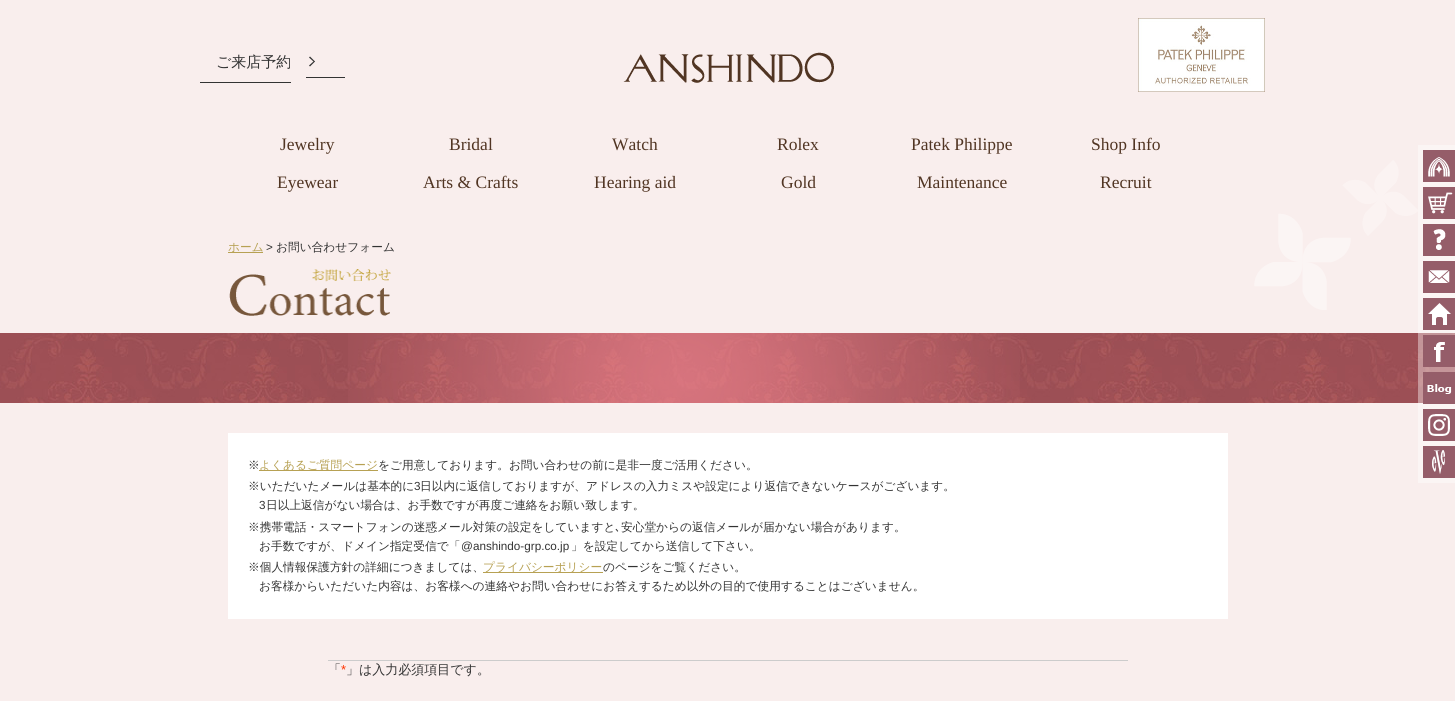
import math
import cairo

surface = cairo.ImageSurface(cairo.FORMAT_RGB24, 1455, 701)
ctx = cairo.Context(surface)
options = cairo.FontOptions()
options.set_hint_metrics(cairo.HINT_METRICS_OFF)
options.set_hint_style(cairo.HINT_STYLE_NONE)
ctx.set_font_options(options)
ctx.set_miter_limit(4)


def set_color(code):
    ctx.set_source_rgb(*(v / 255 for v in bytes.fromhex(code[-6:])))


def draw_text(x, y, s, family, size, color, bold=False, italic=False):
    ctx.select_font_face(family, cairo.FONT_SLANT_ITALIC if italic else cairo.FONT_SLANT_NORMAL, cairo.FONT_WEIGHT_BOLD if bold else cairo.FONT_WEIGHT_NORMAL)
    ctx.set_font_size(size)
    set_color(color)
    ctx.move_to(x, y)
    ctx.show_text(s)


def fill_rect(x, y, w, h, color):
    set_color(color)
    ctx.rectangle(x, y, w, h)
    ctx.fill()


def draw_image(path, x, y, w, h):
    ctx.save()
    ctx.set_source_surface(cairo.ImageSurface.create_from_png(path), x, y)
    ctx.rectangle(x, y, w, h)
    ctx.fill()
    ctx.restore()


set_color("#f9eeed")
ctx.paint()
fill_rect(200, 82, 91, 1, "#333333")
fill_rect(306, 77, 39, 1, "#333333")
draw_text(216, 67, "ご来店予約", "WenQuanYi Zen Hei Medium", 15, "#333333")
ctx.new_path()
ctx.move_to(310, 56.5)
ctx.line_to(315, 61.5)
ctx.line_to(314, 62)
ctx.line_to(309, 57.5)
ctx.close_path()
ctx.fill()
ctx.new_path()
ctx.move_to(314, 61)
ctx.line_to(315, 61.5)
ctx.line_to(310, 66.5)
ctx.line_to(309, 65.5)
ctx.close_path()
ctx.fill()
draw_image("assets/img1.png", 623, 52, 211, 31)
draw_image("assets/img2.png", 1138, 18, 127, 74)
draw_text(280, 150, "Jewelry", "Liberation Serif", 17.5, "#513523")
draw_text(449, 150, "Bridal", "Liberation Serif", 17.5, "#513523")
draw_text(612, 150, "Watch", "Liberation Serif", 17.5, "#513523")
draw_text(777, 150, "Rolex", "Liberation Serif", 17.5, "#513523")
draw_text(911, 150, "Patek Philippe", "Liberation Serif", 17.5, "#513523")
draw_text(1091, 150, "Shop Info", "Liberation Serif", 17.5, "#513523")
draw_text(277, 188, "Eyewear", "Liberation Serif", 17.5, "#513523")
draw_text(423, 188, "Arts & Crafts", "Liberation Serif", 17.5, "#513523")
draw_text(594, 188, "Hearing aid", "Liberation Serif", 17.5, "#513523")
draw_text(781, 188, "Gold", "Liberation Serif", 17.5, "#513523")
draw_text(917, 188, "Maintenance", "Liberation Serif", 17.5, "#513523")
draw_text(1100, 188, "Recruit", "Liberation Serif", 17.5, "#513523")
draw_image("assets/img14.png", 0, 333, 1455, 70)
ctx.set_source_rgba(1, 1, 1, 0.4)
ctx.rectangle(1418, 145, 37, 338)
ctx.fill()
draw_image("assets/img3.png", 1423, 150, 32, 32)
draw_image("assets/img4.png", 1423, 187, 32, 32)
draw_image("assets/img5.png", 1423, 224, 32, 32)
draw_image("assets/img6.png", 1423, 261, 32, 32)
draw_image("assets/img7.png", 1423, 298, 32, 32)
draw_image("assets/img8.png", 1423, 335, 32, 32)
draw_image("assets/img9.png", 1423, 372, 32, 32)
draw_image("assets/img10.png", 1423, 409, 32, 32)
draw_image("assets/img11.png", 1423, 446, 32, 32)
fill_rect(228, 252, 35, 1, "#b7a153")
draw_text(228, 251, "ホーム", "WenQuanYi Zen Hei Medium", 11.7, "#b7a153")
draw_text(266, 251, ">", "Liberation Sans", 11.7, "#333333")
draw_text(276, 251, "お問い合わせフォーム", "WenQuanYi Zen Hei Medium", 11.7, "#333333")
draw_image("assets/img12.png", 229, 269, 162, 47)
draw_image("assets/img13.png", 1254, 160, 164, 150)
draw_image("assets/img15.png", 348, 333, 672, 70)
fill_rect(228, 433, 1000, 186, "#ffffff")
draw_text(248, 469, "※", "WenQuanYi Zen Hei Medium", 11.7, "#333333")
fill_rect(259, 470, 119, 1, "#b7a153")
draw_text(259, 469, "よくあるご質問ページ", "WenQuanYi Zen Hei Medium", 11.7, "#b7a153")
draw_text(378, 469, "をご用意しております。お問い合わせの前に是非一度ご活用ください。", "WenQuanYi Zen Hei Medium", 11.7, "#333333")
draw_text(248, 490, "※いただいたメールは基本的に", "WenQuanYi Zen Hei Medium", 11.7, "#333333")
draw_text(414, 490, "3", "Liberation Sans", 11.7, "#333333")
draw_text(420, 490, "日以内に返信しておりますが、アドレスの入力ミスや設定により返信できないケースがございます。", "WenQuanYi Zen Hei Medium", 11.7, "#333333")
draw_text(259, 509, "3", "Liberation Sans", 11.7, "#333333")
draw_text(266, 509, "日以上返信がない場合は、お手数ですが再度ご連絡をお願い致します。", "WenQuanYi Zen Hei Medium", 11.7, "#333333")
draw_text(248, 531, "※携帯電話・スマートフォンの迷惑メール対策の設定をしていますと", "WenQuanYi Zen Hei Medium", 11.7, "#333333")
draw_text(615, 531, "､", "IPAPGothic", 11.7, "#333333")
draw_text(621, 531, "安心堂からの返信メールが届かない場合があります。", "WenQuanYi Zen Hei Medium", 11.7, "#333333")
draw_text(259, 550, "お手数ですが、ドメイン指定受信で「", "WenQuanYi Zen Hei Medium", 11.7, "#333333")
draw_text(461, 550, "@anshindo-grp.co.jp", "Liberation Sans", 11.7, "#333333")
draw_text(571, 550, "」を設定してから送信して下さい。", "WenQuanYi Zen Hei Medium", 11.7, "#333333")
draw_text(248, 571, "※個人情報保護方針の詳細につきましては、", "WenQuanYi Zen Hei Medium", 11.7, "#333333")
fill_rect(483, 572, 120, 1, "#b7a153")
draw_text(483, 571, "プライバシーポリシー", "WenQuanYi Zen Hei Medium", 11.7, "#b7a153")
draw_text(603, 571, "のページをご覧ください。", "WenQuanYi Zen Hei Medium", 11.7, "#333333")
draw_text(259, 590, "お客様からいただいた内容は、お客様への連絡やお問い合わせにお答えするため以外の目的で使用することはございません。", "WenQuanYi Zen Hei Medium", 11.7, "#333333")
fill_rect(328, 660, 800, 1, "#cccccc")
draw_text(328, 674, "「", "WenQuanYi Zen Hei Medium", 13, "#333333")
draw_text(341, 674, "*", "Liberation Sans", 13, "#ff3300")
draw_text(346, 674, "」は入力必須項目です。", "WenQuanYi Zen Hei Medium", 13, "#333333")
surface.write_to_png("output.png")
